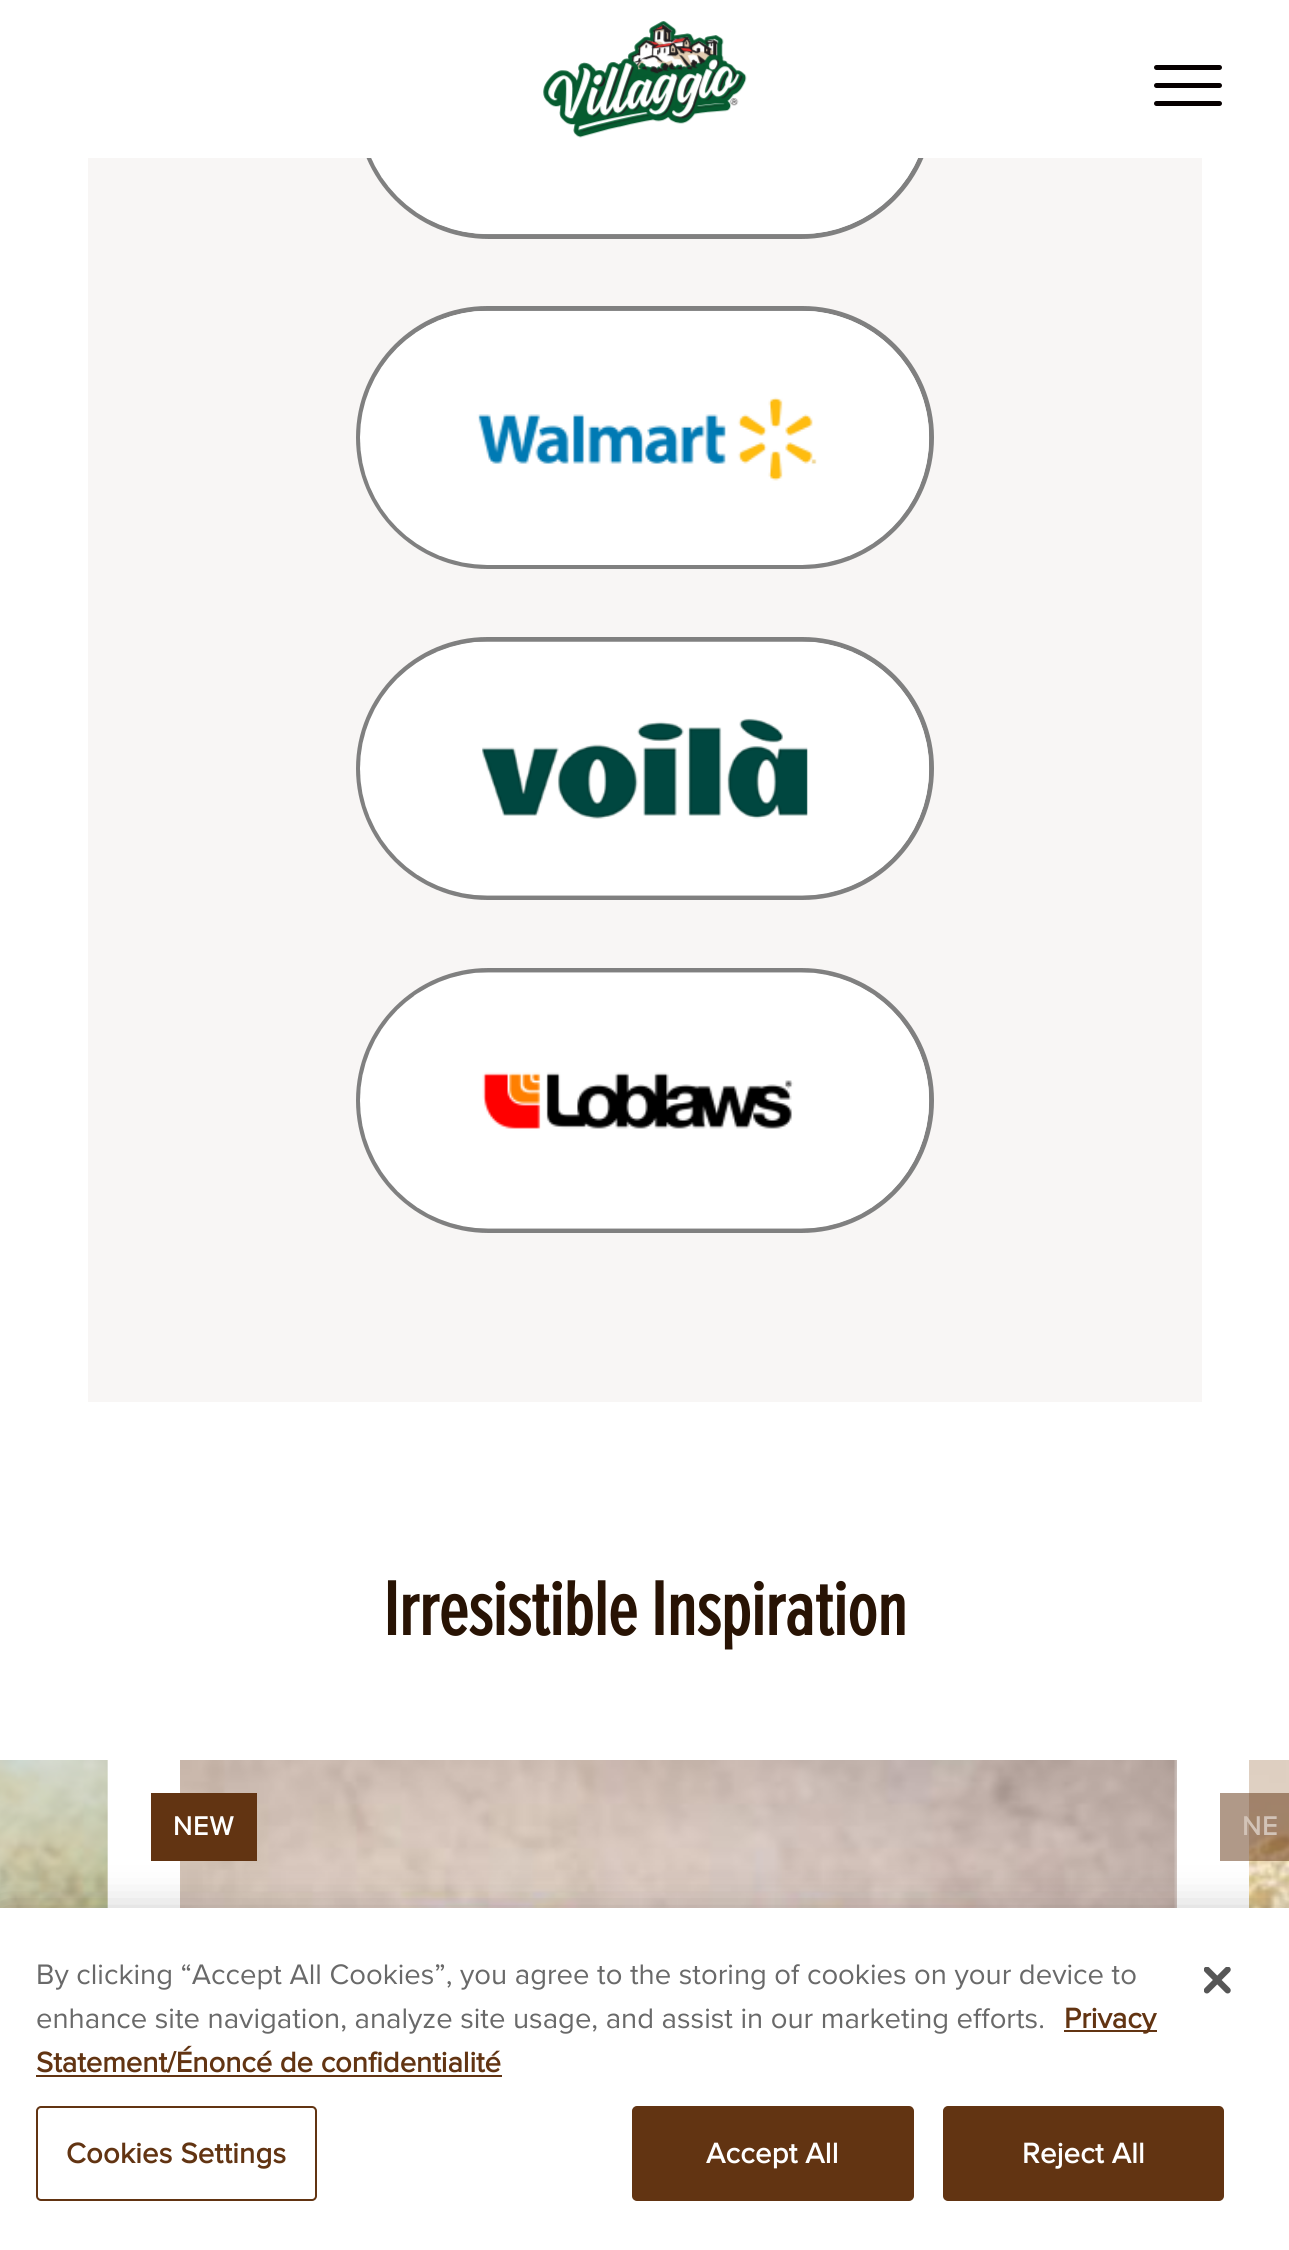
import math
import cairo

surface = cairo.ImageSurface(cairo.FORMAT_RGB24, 1289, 2250)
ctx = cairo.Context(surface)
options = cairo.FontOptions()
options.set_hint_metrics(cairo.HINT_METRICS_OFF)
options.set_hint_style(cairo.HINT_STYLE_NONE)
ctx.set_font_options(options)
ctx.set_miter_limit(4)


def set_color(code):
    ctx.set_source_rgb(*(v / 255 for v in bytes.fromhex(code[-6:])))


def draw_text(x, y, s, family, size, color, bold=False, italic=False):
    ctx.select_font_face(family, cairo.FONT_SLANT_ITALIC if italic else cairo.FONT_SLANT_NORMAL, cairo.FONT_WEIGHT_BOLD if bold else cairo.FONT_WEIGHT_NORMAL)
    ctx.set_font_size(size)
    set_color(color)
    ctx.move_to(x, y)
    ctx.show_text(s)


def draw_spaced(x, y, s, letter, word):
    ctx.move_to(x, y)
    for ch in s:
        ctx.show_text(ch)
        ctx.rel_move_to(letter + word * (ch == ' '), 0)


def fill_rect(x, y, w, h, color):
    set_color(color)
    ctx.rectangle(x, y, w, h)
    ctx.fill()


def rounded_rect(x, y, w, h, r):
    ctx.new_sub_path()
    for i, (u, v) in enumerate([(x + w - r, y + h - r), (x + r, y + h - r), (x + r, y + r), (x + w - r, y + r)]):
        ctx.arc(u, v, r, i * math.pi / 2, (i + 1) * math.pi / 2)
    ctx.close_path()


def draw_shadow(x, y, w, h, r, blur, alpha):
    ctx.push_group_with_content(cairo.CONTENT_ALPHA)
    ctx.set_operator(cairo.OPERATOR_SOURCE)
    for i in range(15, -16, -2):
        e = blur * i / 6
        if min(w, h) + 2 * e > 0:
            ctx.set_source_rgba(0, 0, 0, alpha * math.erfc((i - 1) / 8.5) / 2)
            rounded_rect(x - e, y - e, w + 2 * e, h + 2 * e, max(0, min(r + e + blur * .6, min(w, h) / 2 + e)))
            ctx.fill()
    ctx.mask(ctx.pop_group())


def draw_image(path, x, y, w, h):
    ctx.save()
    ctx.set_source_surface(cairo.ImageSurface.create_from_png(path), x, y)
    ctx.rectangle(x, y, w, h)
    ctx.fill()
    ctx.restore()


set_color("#ffffff")
ctx.paint()
fill_rect(88, 158, 1114, 1244, "#f8f6f5")
rounded_rect(358.5, -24.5, 573, 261, 130.5)
set_color("#808080")
ctx.set_line_width(5)
ctx.stroke()
fill_rect(356, 0, 578, 158, "#ffffff")
draw_image("assets/img1.png", 543, 21, 204, 117)
set_color("#060000")
rounded_rect(1154, 65, 68, 5, 2.5)
ctx.fill()
rounded_rect(1154, 83, 68, 5, 2.5)
ctx.fill()
rounded_rect(1154, 101, 68, 5, 2.5)
ctx.fill()
draw_image("assets/img2.png", 371, 158, 547, 77)
set_color("#ffffff")
rounded_rect(358.5, 308.5, 573, 258, 129)
ctx.fill_preserve()
set_color("#808080")
ctx.stroke()
draw_image("assets/img3.png", 360, 310, 570, 255)
rounded_rect(358.5, 639.5, 573, 258, 129)
ctx.stroke()
draw_image("assets/img4.png", 360, 641, 570, 255)
rounded_rect(358.5, 970.5, 573, 260, 130)
ctx.stroke()
draw_image("assets/img5.png", 360, 972, 570, 257)
draw_text(383, 1635, "Irresistible Inspiration", "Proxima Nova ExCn", 78.75, "#281304", bold=True)
draw_image("assets/img6.png", 0, 1760, 108, 148)
draw_image("assets/img7.png", 180, 1760, 997, 148)
fill_rect(151, 1793, 106, 68, "#623412")
ctx.select_font_face("Proxima Nova", cairo.FONT_SLANT_NORMAL, cairo.FONT_WEIGHT_BOLD)
ctx.set_font_size(27)
set_color("#ffffff")
draw_spaced(173, 1835, "NEW", 1, 0)
draw_image("assets/img8.png", 1249, 1760, 40, 148)
ctx.set_source_rgba(0.384, 0.204, 0.071, 0.5)
ctx.rectangle(1220, 1793, 69, 68)
ctx.fill()
set_color("#d2c3b7")
draw_spaced(1242, 1835, "NE", 1, 0)
set_color("#000000")
draw_shadow(0, 1908, 1289, 342, 0, 20, 0.2)
fill_rect(0, 1908, 1289, 342, "#ffffff")
draw_text(36, 1984, "By clicking “Accept All Cookies”, you agree to the storing of cookies on your device to", "Proxima Nova", 29.25, "#696969")
draw_text(36, 2028, "enhance site navigation, analyze site usage, and assist in our marketing efforts.", "Proxima Nova", 29.25, "#696969")
fill_rect(1064, 2030, 93, 2, "#623412")
draw_text(1064, 2028, "Privacy", "Proxima Nova", 29.25, "#623412", bold=True)
draw_text(36, 2072, "Statement/Énoncé de confidentialité", "Proxima Nova", 29.25, "#623412", bold=True)
fill_rect(36, 2075, 466, 2, "#623412")
rounded_rect(37, 2107, 279, 93, 4)
ctx.set_line_width(2)
ctx.stroke()
draw_spaced(66, 2163, "Cookies Settings", 0.25, 0)
rounded_rect(633, 2107, 280, 93, 4)
ctx.fill_preserve()
ctx.stroke()
set_color("#ffffff")
draw_spaced(706, 2163, "Accept All", 0.25, 0)
set_color("#623412")
rounded_rect(944, 2107, 279, 93, 4)
ctx.fill_preserve()
ctx.stroke()
set_color("#ffffff")
draw_spaced(1022, 2163, "Reject All", 0.25, 0)
draw_image("assets/img9.png", 1204, 1967, 27, 27)
surface.write_to_png("output.png")
